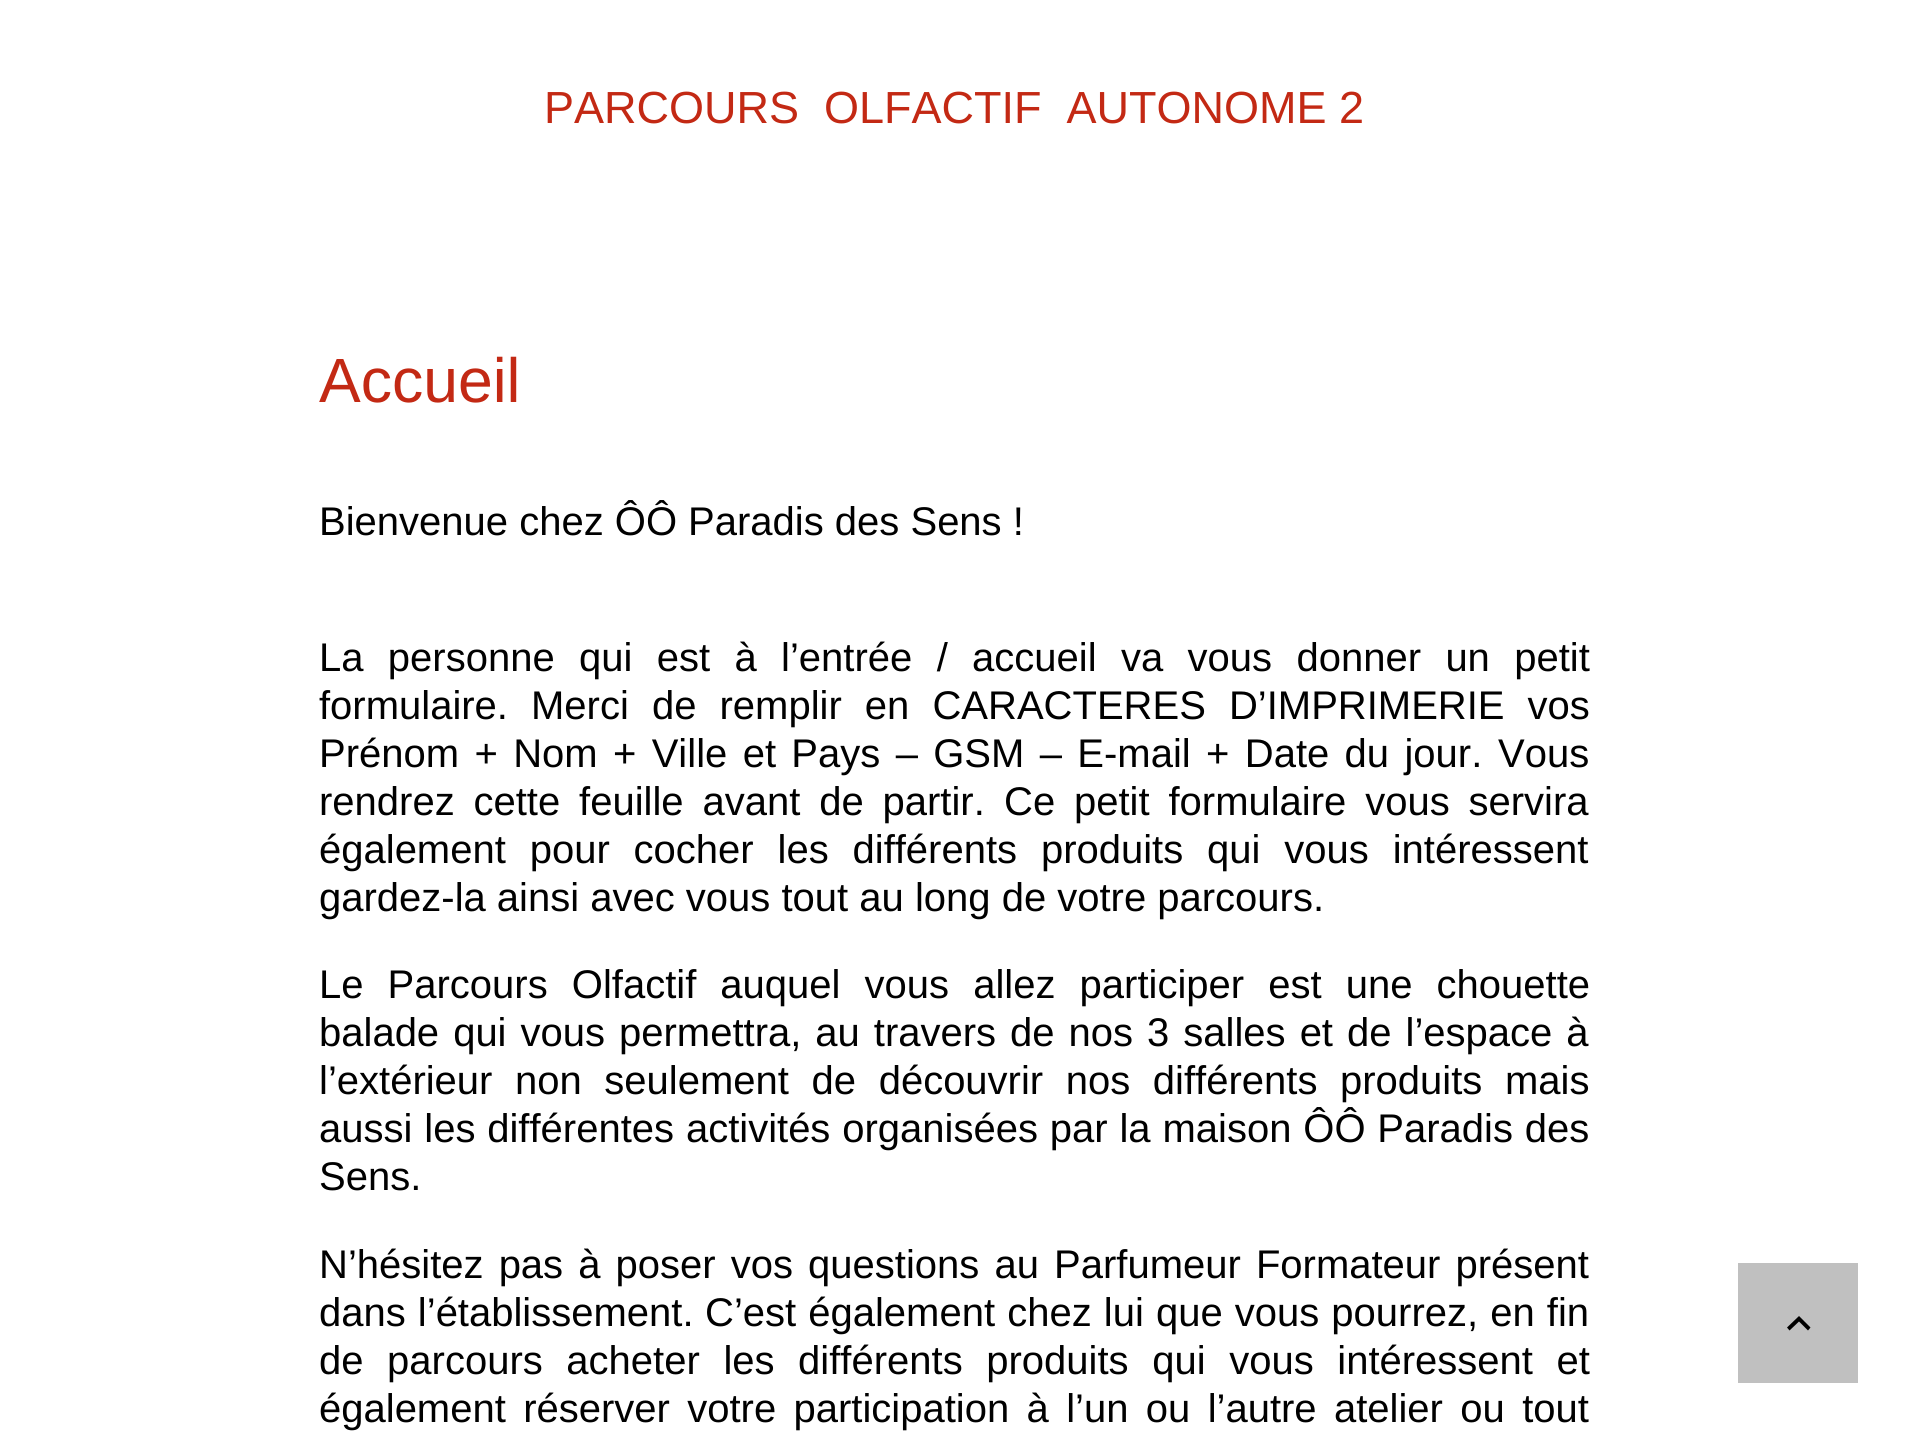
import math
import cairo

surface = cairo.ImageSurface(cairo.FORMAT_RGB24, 1906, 1431)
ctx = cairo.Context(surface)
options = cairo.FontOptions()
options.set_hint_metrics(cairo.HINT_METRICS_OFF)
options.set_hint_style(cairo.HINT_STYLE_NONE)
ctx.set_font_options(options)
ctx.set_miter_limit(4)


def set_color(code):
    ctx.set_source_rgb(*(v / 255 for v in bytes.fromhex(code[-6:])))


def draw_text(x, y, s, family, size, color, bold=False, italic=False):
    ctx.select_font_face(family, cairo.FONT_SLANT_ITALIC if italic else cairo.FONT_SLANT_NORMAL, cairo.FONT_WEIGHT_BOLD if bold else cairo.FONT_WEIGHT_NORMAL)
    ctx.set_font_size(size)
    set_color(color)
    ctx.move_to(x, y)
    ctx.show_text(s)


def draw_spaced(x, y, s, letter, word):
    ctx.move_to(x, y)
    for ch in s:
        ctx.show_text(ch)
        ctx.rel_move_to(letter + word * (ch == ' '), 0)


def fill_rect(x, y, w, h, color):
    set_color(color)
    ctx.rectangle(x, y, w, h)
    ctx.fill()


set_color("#ffffff")
ctx.paint()
draw_text(544, 123, "PARCOURS  OLFACTIF  AUTONOME 2", "Liberation Sans", 45, "#c32914")
draw_text(319, 402, "Accueil", "Liberation Sans", 62.5, "#c32914")
draw_text(319, 535, "Bienvenue chez ÔÔ Paradis des Sens !", "Liberation Sans", 40, "#000000")
draw_spaced(319, 671, "La personne qui est à l’entrée / accueil va vous donner un petit", 0, 13.25)
draw_text(319, 719, "formulaire.", "Liberation Sans", 40, "#000000")
draw_spaced(531, 719, "Merci de remplir en CARACTERES D’IMPRIMERIE vos", 0, 12)
draw_spaced(319, 767, "Prénom + Nom + Ville et Pays – GSM – E-mail + Date du jour.", 0, 4.25)
draw_text(1498, 767, "Vous", "Liberation Sans", 40, "#000000")
draw_spaced(319, 815, "rendrez cette feuille avant de partir.", 0, 7.75)
draw_spaced(1004, 815, "Ce petit formulaire vous servira", 0, 7.75)
draw_spaced(319, 863, "également pour cocher les différents produits qui vous intéressent", 0, 12.75)
draw_text(319, 911, "gardez-la ainsi avec vous tout au long de votre parcours.", "Liberation Sans", 40, "#000000")
draw_spaced(319, 998, "Le Parcours Olfactif auquel vous allez participer est une chouette", 0, 13)
draw_spaced(319, 1046, "balade qui vous permettra, au travers de nos 3 salles et de l’espace à", 0, 2.9)
draw_spaced(319, 1094, "l’extérieur non seulement de découvrir nos différents produits mais", 0, 11.5)
draw_spaced(319, 1142, "aussi les différentes activités organisées par la maison ÔÔ Paradis des", 0, 0.75)
draw_text(319, 1190, "Sens.", "Liberation Sans", 40, "#000000")
draw_spaced(319, 1278, "N’hésitez pas à poser vos questions au Parfumeur Formateur présent", 0, 4)
draw_spaced(319, 1326, "dans l’établissement.", 0, 1)
draw_spaced(705, 1326, "C’est également chez lui que vous pourrez, en fin", 0, 1)
draw_spaced(319, 1374, "de parcours acheter les différents produits qui vous intéressent et", 0, 12.5)
draw_spaced(319, 1422, "également réserver votre participation à l’un ou l’autre atelier ou tout", 0, 6.25)
fill_rect(1738, 1263, 120, 120, "#c0c0c0")
set_color("#000000")
ctx.new_path()
ctx.move_to(1799, 1316)
ctx.line_to(1787, 1327.5)
ctx.line_to(1789.5, 1330.5)
ctx.line_to(1799, 1321.5)
ctx.line_to(1808, 1330.5)
ctx.line_to(1810.5, 1327.5)
ctx.close_path()
ctx.fill()
surface.write_to_png("output.png")
